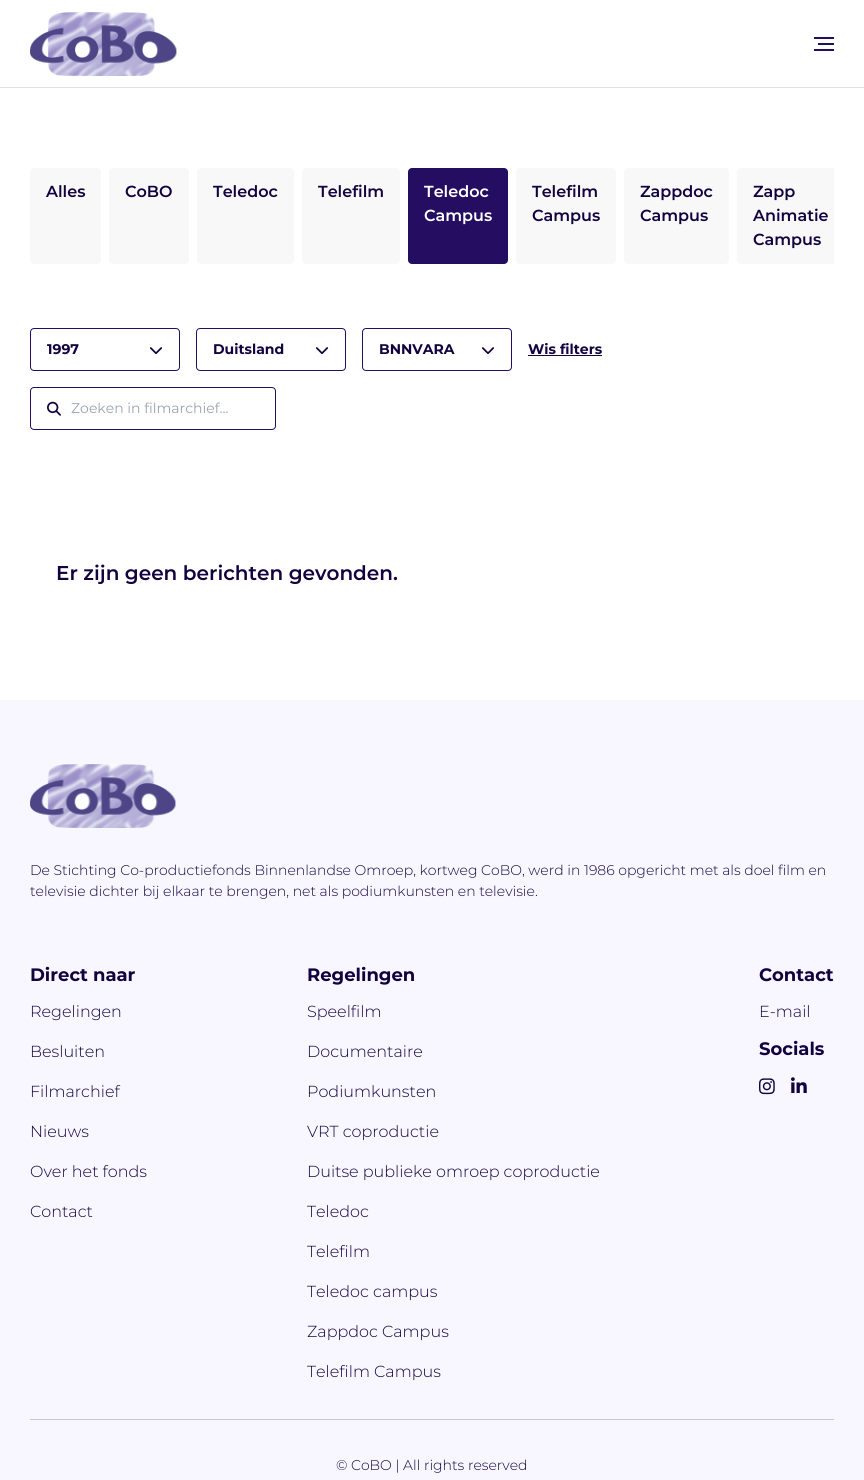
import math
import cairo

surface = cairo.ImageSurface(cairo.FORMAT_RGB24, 864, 1480)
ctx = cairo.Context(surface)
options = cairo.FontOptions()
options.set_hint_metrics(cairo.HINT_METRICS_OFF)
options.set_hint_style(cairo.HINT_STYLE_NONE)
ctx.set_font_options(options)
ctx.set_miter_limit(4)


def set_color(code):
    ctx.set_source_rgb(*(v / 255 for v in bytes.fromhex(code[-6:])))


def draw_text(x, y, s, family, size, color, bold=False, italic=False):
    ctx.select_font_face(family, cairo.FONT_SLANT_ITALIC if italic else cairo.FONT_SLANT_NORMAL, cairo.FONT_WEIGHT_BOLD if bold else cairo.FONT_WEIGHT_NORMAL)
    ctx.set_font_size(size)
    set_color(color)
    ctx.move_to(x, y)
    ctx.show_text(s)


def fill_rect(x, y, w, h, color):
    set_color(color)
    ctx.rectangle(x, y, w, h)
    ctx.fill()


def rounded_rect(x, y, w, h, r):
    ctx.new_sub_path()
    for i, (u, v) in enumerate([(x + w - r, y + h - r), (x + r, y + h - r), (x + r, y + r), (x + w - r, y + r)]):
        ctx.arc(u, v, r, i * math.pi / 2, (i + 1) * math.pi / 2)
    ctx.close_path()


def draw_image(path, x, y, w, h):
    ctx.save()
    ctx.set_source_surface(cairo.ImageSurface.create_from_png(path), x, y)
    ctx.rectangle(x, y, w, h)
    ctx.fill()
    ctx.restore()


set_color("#ffffff")
ctx.paint()
fill_rect(0, 87, 864, 1, "#e1e1e1")
draw_image("assets/img1.png", 30, 12, 147, 64)
fill_rect(814, 37, 20, 2, "#250e62")
fill_rect(818, 43, 16, 2, "#250e62")
fill_rect(814, 49, 20, 2, "#250e62")
set_color("#f8f8f8")
rounded_rect(30, 168, 71, 96, 4)
ctx.fill()
draw_text(46, 197, "Alles", "Montserrat SemiBold", 16, "#12033f")
set_color("#f8f8f8")
rounded_rect(109, 168, 80, 96, 4)
ctx.fill()
draw_text(125, 197, "CoBO", "Montserrat SemiBold", 16, "#12033f")
set_color("#f8f8f8")
rounded_rect(197, 168, 97, 96, 4)
ctx.fill()
draw_text(213, 197, "Teledoc", "Montserrat SemiBold", 16, "#12033f")
set_color("#f8f8f8")
rounded_rect(302, 168, 98, 96, 4)
ctx.fill()
draw_text(318, 197, "Telefilm", "Montserrat SemiBold", 16, "#12033f")
set_color("#250e62")
rounded_rect(408, 168, 100, 96, 4)
ctx.fill()
draw_text(424, 197, "Teledoc", "Montserrat SemiBold", 16, "#ffffff")
draw_text(424, 221, "Campus", "Montserrat SemiBold", 16, "#ffffff")
set_color("#f8f8f8")
rounded_rect(516, 168, 100, 96, 4)
ctx.fill()
draw_text(532, 197, "Telefilm", "Montserrat SemiBold", 16, "#12033f")
draw_text(532, 221, "Campus", "Montserrat SemiBold", 16, "#12033f")
set_color("#f8f8f8")
rounded_rect(624, 168, 105, 96, 4)
ctx.fill()
draw_text(640, 197, "Zappdoc", "Montserrat SemiBold", 16, "#12033f")
draw_text(640, 221, "Campus", "Montserrat SemiBold", 16, "#12033f")
set_color("#f8f8f8")
ctx.new_path()
ctx.move_to(741, 168)
ctx.line_to(834, 168)
ctx.line_to(834, 264)
ctx.line_to(741, 264)
ctx.curve_to(739, 264, 737, 262, 737, 260)
ctx.line_to(737, 172)
ctx.curve_to(737, 170, 739, 168, 741, 168)
ctx.close_path()
ctx.fill()
draw_text(753, 197, "Zapp", "Montserrat SemiBold", 16, "#12033f")
draw_text(753, 221, "Animatie", "Montserrat SemiBold", 16, "#12033f")
draw_text(753, 245, "Campus", "Montserrat SemiBold", 16, "#12033f")
rounded_rect(30.5, 328.5, 149, 42, 3.5)
set_color("#250e62")
ctx.set_line_width(1)
ctx.stroke()
draw_text(47, 354, "1997", "Montserrat", 14, "#12033f", bold=True)
draw_image("assets/img2.png", 150, 347, 12, 7)
rounded_rect(196.5, 328.5, 149, 42, 3.5)
set_color("#250e62")
ctx.stroke()
draw_text(213, 354, "Duitsland", "Montserrat", 14, "#12033f", bold=True)
draw_image("assets/img2.png", 316, 347, 12, 7)
rounded_rect(362.5, 328.5, 149, 42, 3.5)
set_color("#250e62")
ctx.stroke()
draw_text(379, 354, "BNNVARA", "Montserrat", 14, "#12033f", bold=True)
draw_image("assets/img2.png", 482, 347, 12, 7)
draw_text(528, 354, "Wis filters", "Montserrat", 14, "#12033f", bold=True)
fill_rect(528, 355, 74, 1, "#12033f")
rounded_rect(30.5, 387.5, 245, 42, 3.5)
set_color("#250e62")
ctx.stroke()
draw_image("assets/img3.png", 47, 401, 14, 15)
draw_text(71, 413, "Zoeken in filmarchief...", "Montserrat", 14, "#9ca3af")
draw_text(56, 580, "Er zijn geen berichten gevonden.", "Montserrat SemiBold", 20, "#12033f")
fill_rect(0, 700, 864, 780, "#f8f7ff")
draw_image("assets/img4.png", 30, 764, 146, 64)
draw_text(30, 875, "De Stichting Co-productiefonds Binnenlandse Omroep, kortweg CoBO, werd in 1986 opgericht met als doel film en", "Montserrat Light", 14, "#12033f")
draw_text(30, 896, "televisie dichter bij elkaar te brengen, net als podiumkunsten en televisie.", "Montserrat Light", 14, "#12033f")
draw_text(30, 981, "Direct naar", "Montserrat", 18, "#12033f", bold=True)
draw_text(30, 1017, "Regelingen", "Montserrat Light", 16, "#12033f")
draw_text(30, 1057, "Besluiten", "Montserrat Light", 16, "#12033f")
draw_text(30, 1097, "Filmarchief", "Montserrat Light", 16, "#12033f")
draw_text(30, 1137, "Nieuws", "Montserrat Light", 16, "#12033f")
draw_text(30, 1177, "Over het fonds", "Montserrat Light", 16, "#12033f")
draw_text(30, 1217, "Contact", "Montserrat Light", 16, "#12033f")
draw_text(307, 981, "Regelingen", "Montserrat", 18, "#12033f", bold=True)
draw_text(307, 1017, "Speelfilm", "Montserrat Light", 16, "#12033f")
draw_text(307, 1057, "Documentaire", "Montserrat Light", 16, "#12033f")
draw_text(307, 1097, "Podiumkunsten", "Montserrat Light", 16, "#12033f")
draw_text(307, 1137, "VRT coproductie", "Montserrat Light", 16, "#12033f")
draw_text(307, 1177, "Duitse publieke omroep coproductie", "Montserrat Light", 16, "#12033f")
draw_text(307, 1217, "Teledoc", "Montserrat Light", 16, "#12033f")
draw_text(307, 1257, "Telefilm", "Montserrat Light", 16, "#12033f")
draw_text(307, 1297, "Teledoc campus", "Montserrat Light", 16, "#12033f")
draw_text(307, 1337, "Zappdoc Campus", "Montserrat Light", 16, "#12033f")
draw_text(307, 1377, "Telefilm Campus", "Montserrat Light", 16, "#12033f")
draw_text(759, 981, "Contact", "Montserrat", 18, "#12033f", bold=True)
draw_text(759, 1017, "E-mail", "Montserrat Light", 16, "#12033f")
draw_text(759, 1055, "Socials", "Montserrat", 18, "#12033f", bold=True)
draw_image("assets/img5.png", 759, 1078, 16, 17)
draw_image("assets/img6.png", 791, 1077, 16, 16)
fill_rect(30, 1419, 804, 1, "#cac6d9")
draw_text(336, 1470, "© CoBO | All rights reserved", "Montserrat Light", 14, "#12033f")
surface.write_to_png("output.png")
